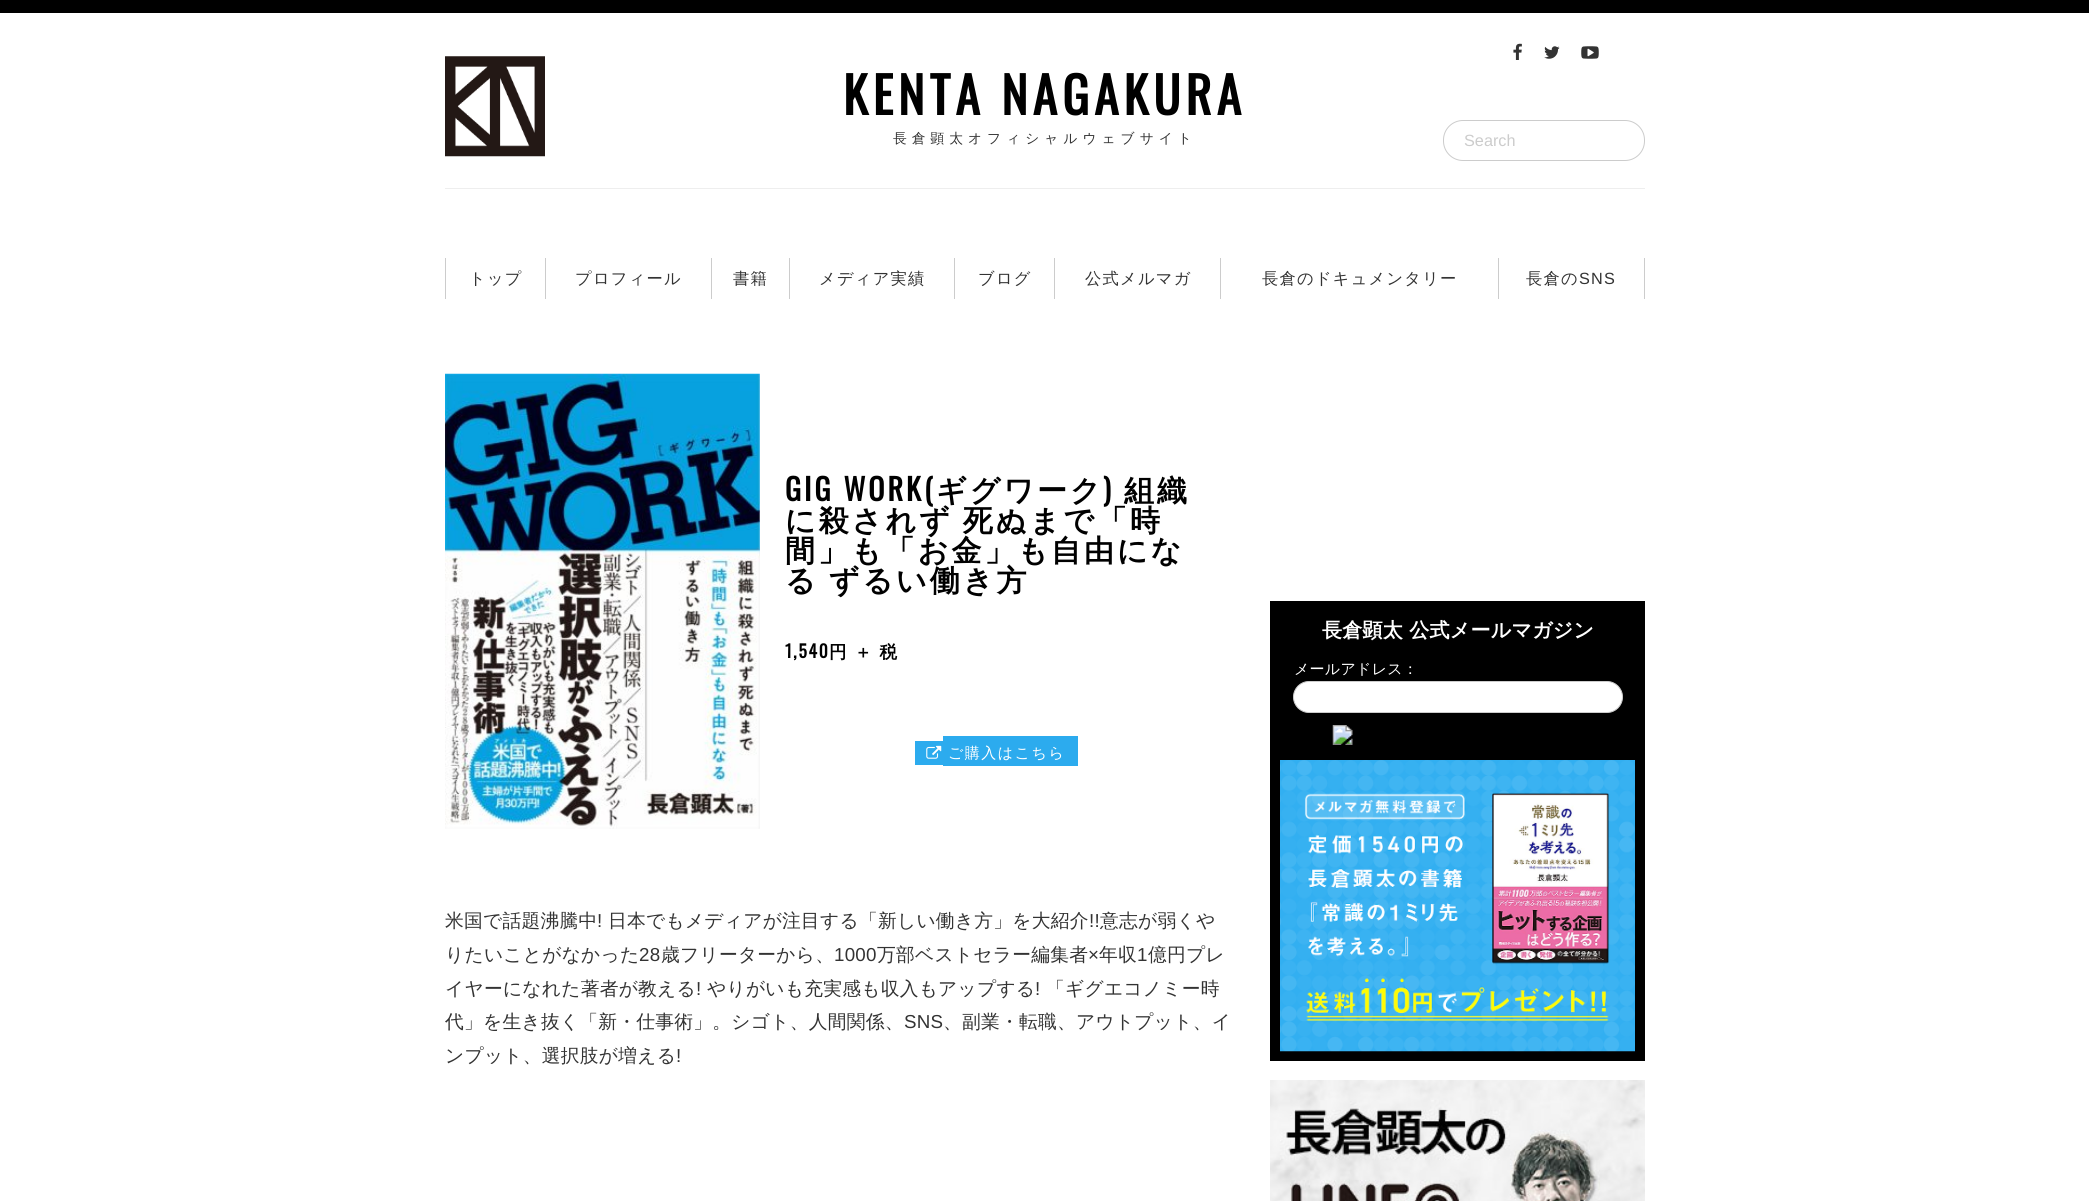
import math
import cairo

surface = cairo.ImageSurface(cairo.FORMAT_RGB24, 2089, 1201)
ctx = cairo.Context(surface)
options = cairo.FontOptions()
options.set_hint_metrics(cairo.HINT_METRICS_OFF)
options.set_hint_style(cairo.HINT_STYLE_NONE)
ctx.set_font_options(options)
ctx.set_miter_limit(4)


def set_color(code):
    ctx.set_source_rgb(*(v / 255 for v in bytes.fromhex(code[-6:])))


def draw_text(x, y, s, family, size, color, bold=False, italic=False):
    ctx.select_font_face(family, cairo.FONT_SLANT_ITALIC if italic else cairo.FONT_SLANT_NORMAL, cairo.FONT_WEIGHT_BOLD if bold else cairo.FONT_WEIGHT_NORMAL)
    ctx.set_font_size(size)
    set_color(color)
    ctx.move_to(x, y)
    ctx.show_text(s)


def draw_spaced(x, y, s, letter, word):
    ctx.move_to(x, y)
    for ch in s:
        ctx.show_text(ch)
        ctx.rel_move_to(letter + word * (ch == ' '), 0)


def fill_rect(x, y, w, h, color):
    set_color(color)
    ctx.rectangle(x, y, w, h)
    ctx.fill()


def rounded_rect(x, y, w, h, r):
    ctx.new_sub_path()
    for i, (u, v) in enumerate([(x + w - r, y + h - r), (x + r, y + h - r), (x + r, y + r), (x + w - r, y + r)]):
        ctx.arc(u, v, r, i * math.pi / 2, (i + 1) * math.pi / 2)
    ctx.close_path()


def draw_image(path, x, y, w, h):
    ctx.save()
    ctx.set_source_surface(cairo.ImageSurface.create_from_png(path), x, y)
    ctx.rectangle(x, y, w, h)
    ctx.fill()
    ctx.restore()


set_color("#ffffff")
ctx.paint()
fill_rect(0, 0, 2089, 13, "#000000")
fill_rect(445, 188, 1200, 1, "#eeeeee")
draw_image("assets/img1.png", 1513, 43, 9, 17)
draw_image("assets/img2.png", 1544, 46, 16, 13)
draw_image("assets/img3.png", 1581, 46, 18, 13)
draw_image("assets/img4.png", 445, 56, 100, 101)
ctx.select_font_face("Oswald", cairo.FONT_SLANT_NORMAL, cairo.FONT_WEIGHT_BOLD)
ctx.set_font_size(50)
set_color("#000000")
draw_spaced(843, 115, "KENTA NAGAKURA", 5, 0)
ctx.select_font_face("WenQuanYi Zen Hei Medium")
ctx.set_font_size(13.75)
set_color("#333333")
draw_spaced(893, 143, "長倉顕太オフィシャルウェブサイト", 5, 0)
rounded_rect(1443.5, 120.5, 201, 40, 19.5)
set_color("#cccccc")
ctx.set_line_width(1)
ctx.stroke()
draw_text(1464, 146, "Search", "Liberation Sans", 16.25, "#cccccc")
fill_rect(445, 258, 1, 41, "#cccccc")
ctx.select_font_face("WenQuanYi Zen Hei Medium")
set_color("#333333")
draw_spaced(469, 284, "トップ", 1.25, 0)
fill_rect(545, 258, 1, 41, "#cccccc")
set_color("#333333")
draw_spaced(575, 284, "プロフィール", 1.25, 0)
fill_rect(711, 258, 1, 41, "#cccccc")
set_color("#333333")
draw_spaced(733, 284, "書籍", 1.25, 0)
fill_rect(789, 258, 1, 41, "#cccccc")
set_color("#333333")
draw_spaced(819, 284, "メディア実績", 1.25, 0)
fill_rect(954, 258, 1, 41, "#cccccc")
set_color("#333333")
draw_spaced(978, 284, "ブログ", 1.25, 0)
fill_rect(1054, 258, 1, 41, "#cccccc")
set_color("#333333")
draw_spaced(1085, 284, "公式メルマガ", 1.25, 0)
fill_rect(1220, 258, 1, 41, "#cccccc")
set_color("#333333")
draw_spaced(1262, 284, "長倉のドキュメンタリー", 1.25, 0)
fill_rect(1644, 258, 1, 41, "#cccccc")
fill_rect(1498, 258, 1, 41, "#cccccc")
set_color("#333333")
draw_spaced(1526, 284, "長倉の", 1.25, 0)
ctx.select_font_face("Liberation Sans")
draw_spaced(1579, 284, "SNS", 1.25, 0)
draw_image("assets/img5.png", 445, 373, 315, 456)
ctx.select_font_face("Oswald", cairo.FONT_SLANT_NORMAL, cairo.FONT_WEIGHT_BOLD)
ctx.set_font_size(30)
set_color("#000000")
draw_spaced(785, 501, "GIG WORK(", 3, 0)
ctx.select_font_face("WenQuanYi Zen Hei", cairo.FONT_SLANT_NORMAL, cairo.FONT_WEIGHT_BOLD)
draw_spaced(936, 501, "ギグワーク", 3, 0)
ctx.select_font_face("Oswald", cairo.FONT_SLANT_NORMAL, cairo.FONT_WEIGHT_BOLD)
draw_spaced(1103, 501, ")", 3, 0)
ctx.select_font_face("WenQuanYi Zen Hei", cairo.FONT_SLANT_NORMAL, cairo.FONT_WEIGHT_BOLD)
draw_spaced(1124, 501, "組織", 3, 0)
draw_spaced(785, 531, "に殺されず 死ぬまで「時", 3, -2)
draw_spaced(785, 561, "間」も「お金」も自由にな", 3, 0)
draw_spaced(785, 591, "る ずるい働き方", 3, -2)
ctx.select_font_face("Oswald", cairo.FONT_SLANT_NORMAL, cairo.FONT_WEIGHT_BOLD)
ctx.set_font_size(17.5)
draw_spaced(785, 658, "1,540", 1.75, 0)
ctx.select_font_face("WenQuanYi Zen Hei", cairo.FONT_SLANT_NORMAL, cairo.FONT_WEIGHT_BOLD)
draw_spaced(829, 658, "円 ＋ 税", 1.75, -1)
fill_rect(915, 741, 28, 24, "#2cabee")
fill_rect(943, 736, 135, 30, "#2cabee")
draw_image("assets/img6.png", 926, 745, 16, 14)
ctx.select_font_face("WenQuanYi Zen Hei Medium")
ctx.set_font_size(15)
set_color("#ffffff")
draw_spaced(948, 758, "ご購入はこちら", 1.5, 0)
ctx.set_font_size(18.75)
set_color("#333333")
draw_spaced(445, 927, "米国で話題沸騰中", 0.25, 0)
ctx.select_font_face("Liberation Sans")
draw_spaced(597, 927, "!", 0.25, 0)
ctx.select_font_face("WenQuanYi Zen Hei Medium")
draw_spaced(608, 927, "日本でもメディアが注目する「新しい働き方」を大紹介", 0.25, 0)
ctx.select_font_face("Liberation Sans")
draw_spaced(1089, 927, "!!", 0.25, 0)
ctx.select_font_face("WenQuanYi Zen Hei Medium")
draw_spaced(1100, 927, "意志が弱くや", 0.25, 0)
draw_spaced(445, 961, "りたいことがなかった", 0.25, 0)
ctx.select_font_face("Liberation Sans")
draw_spaced(639, 961, "28", 0.25, 0)
ctx.select_font_face("WenQuanYi Zen Hei Medium")
draw_spaced(661, 961, "歳フリーターから、", 0.25, 0)
ctx.select_font_face("Liberation Sans")
draw_spaced(834, 961, "1000", 0.25, 0)
ctx.select_font_face("WenQuanYi Zen Hei Medium")
draw_spaced(877, 961, "万部ベストセラー編集者", 0.25, 0)
ctx.select_font_face("Liberation Sans")
draw_spaced(1088, 961, "×", 0.25, 0)
ctx.select_font_face("WenQuanYi Zen Hei Medium")
draw_spaced(1099, 961, "年収", 0.25, 0)
ctx.select_font_face("Liberation Sans")
draw_spaced(1137, 961, "1", 0.25, 0)
ctx.select_font_face("WenQuanYi Zen Hei Medium")
draw_spaced(1148, 961, "億円プレ", 0.25, 0)
draw_spaced(445, 995, "イヤーになれた著者が教える", 0.25, 0)
ctx.select_font_face("Liberation Sans")
draw_spaced(696, 995, "!", 0.25, 0)
ctx.select_font_face("WenQuanYi Zen Hei Medium")
draw_spaced(707, 995, "やりがいも充実感も収入もアップする", 0.25, 0)
ctx.select_font_face("Liberation Sans")
draw_spaced(1035, 995, "!", 0.25, 0)
ctx.select_font_face("WenQuanYi Zen Hei Medium")
draw_spaced(1046, 995, "「ギグエコノミー時", 0.25, 0)
draw_spaced(445, 1028, "代」を生き抜く「新・仕事術」。シゴト、人間関係、", 0.25, 0)
ctx.select_font_face("Liberation Sans")
draw_spaced(904, 1028, "SNS", 0.25, 0)
ctx.select_font_face("WenQuanYi Zen Hei Medium")
draw_spaced(943, 1028, "、副業・転職、アウトプット、イ", 0.25, 0)
draw_spaced(445, 1062, "ンプット、選択肢が増える", 0.25, 0)
ctx.select_font_face("Liberation Sans")
draw_spaced(676, 1062, "!", 0.25, 0)
fill_rect(1270, 601, 375, 460, "#000000")
ctx.select_font_face("WenQuanYi Zen Hei", cairo.FONT_SLANT_NORMAL, cairo.FONT_WEIGHT_BOLD)
ctx.set_font_size(20)
set_color("#ffffff")
draw_spaced(1322, 637, "長倉顕太 公式メールマガジン", 0.25, 0)
ctx.select_font_face("WenQuanYi Zen Hei Medium")
ctx.set_font_size(15)
draw_spaced(1294, 674, "メールアドレス：", 0.25, 0)
rounded_rect(1293.5, 681.5, 329, 31, 15.5)
ctx.fill_preserve()
set_color("#cccccc")
ctx.stroke()
draw_image("assets/img7.png", 1332, 725, 21, 20)
draw_image("assets/img8.png", 1280, 760, 355, 292)
draw_image("assets/img9.png", 1270, 1080, 375, 121)
surface.write_to_png("output.png")
